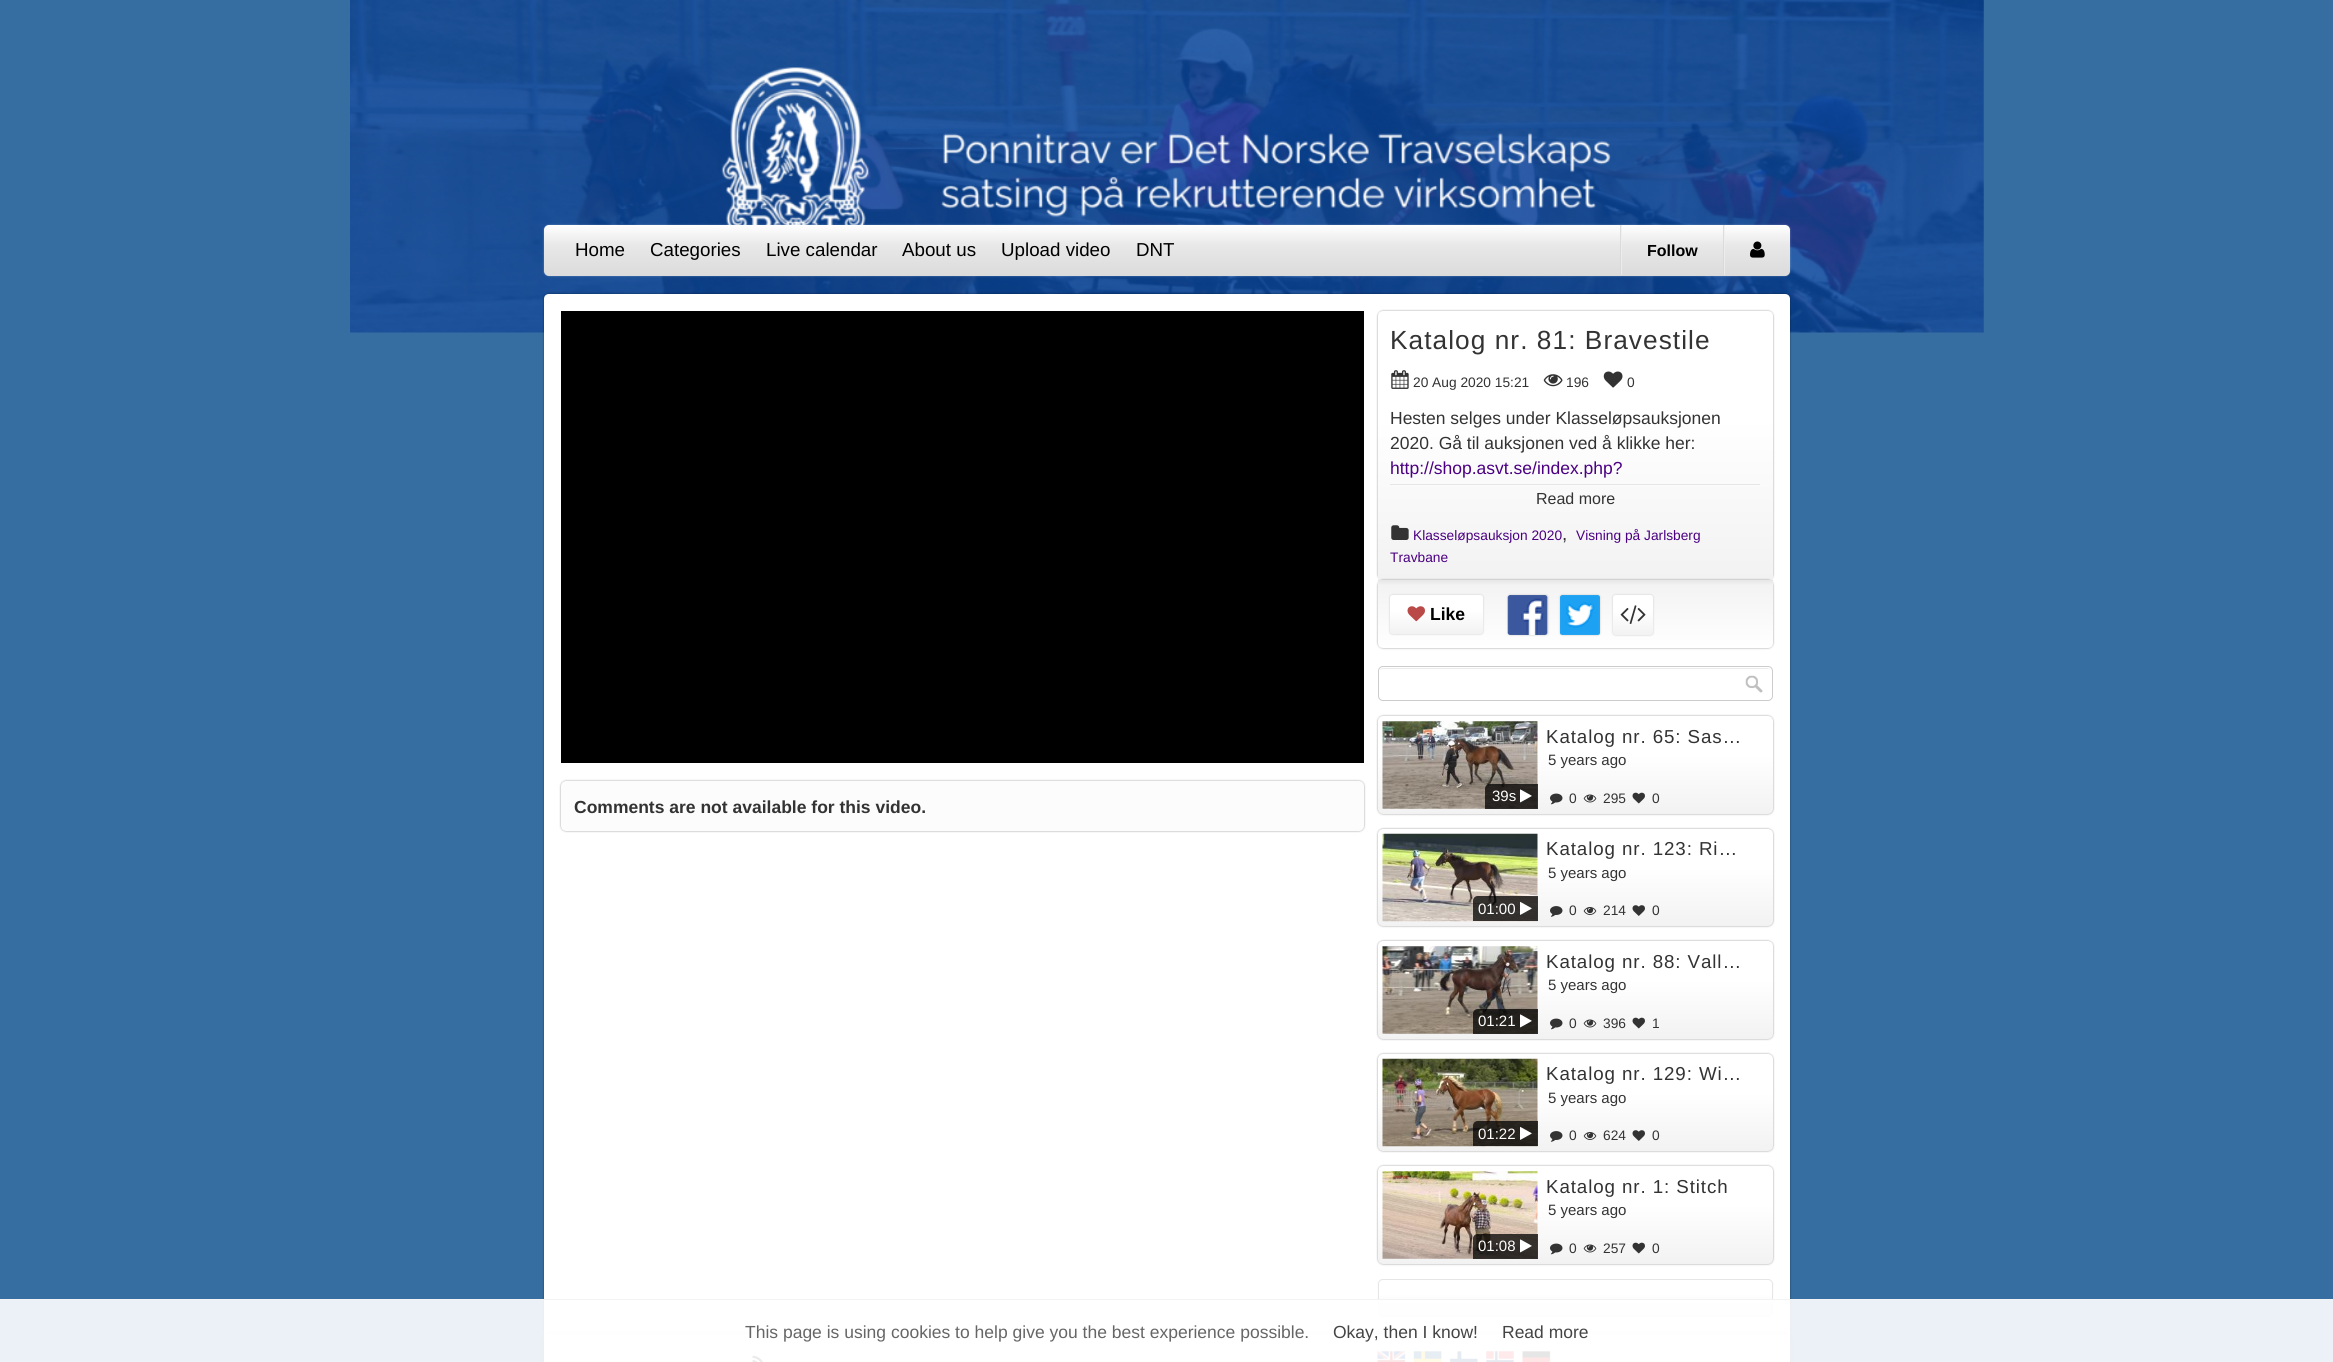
import math
import cairo

surface = cairo.ImageSurface(cairo.FORMAT_RGB24, 2333, 1362)
ctx = cairo.Context(surface)
options = cairo.FontOptions()
options.set_hint_metrics(cairo.HINT_METRICS_OFF)
options.set_hint_style(cairo.HINT_STYLE_NONE)
ctx.set_font_options(options)
ctx.set_miter_limit(4)


def set_color(code):
    ctx.set_source_rgb(*(v / 255 for v in bytes.fromhex(code[-6:])))


def draw_text(x, y, s, family, size, color, bold=False, italic=False):
    ctx.select_font_face(family, cairo.FONT_SLANT_ITALIC if italic else cairo.FONT_SLANT_NORMAL, cairo.FONT_WEIGHT_BOLD if bold else cairo.FONT_WEIGHT_NORMAL)
    ctx.set_font_size(size)
    set_color(color)
    ctx.move_to(x, y)
    ctx.show_text(s)


def draw_spaced(x, y, s, letter, word):
    ctx.move_to(x, y)
    for ch in s:
        ctx.show_text(ch)
        ctx.rel_move_to(letter + word * (ch == ' '), 0)


def fill_rect(x, y, w, h, color):
    set_color(color)
    ctx.rectangle(x, y, w, h)
    ctx.fill()


def rounded_rect(x, y, w, h, r):
    ctx.new_sub_path()
    for i, (u, v) in enumerate([(x + w - r, y + h - r), (x + r, y + h - r), (x + r, y + r), (x + w - r, y + r)]):
        ctx.arc(u, v, r, i * math.pi / 2, (i + 1) * math.pi / 2)
    ctx.close_path()


def draw_shadow(x, y, w, h, r, blur, alpha):
    ctx.push_group_with_content(cairo.CONTENT_ALPHA)
    ctx.set_operator(cairo.OPERATOR_SOURCE)
    for i in range(15, -16, -2):
        e = blur * i / 6
        if min(w, h) + 2 * e > 0:
            ctx.set_source_rgba(0, 0, 0, alpha * math.erfc((i - 1) / 8.5) / 2)
            rounded_rect(x - e, y - e, w + 2 * e, h + 2 * e, max(0, min(r + e + blur * .6, min(w, h) / 2 + e)))
            ctx.fill()
    ctx.mask(ctx.pop_group())


def draw_image(path, x, y, w, h):
    ctx.save()
    ctx.set_source_surface(cairo.ImageSurface.create_from_png(path), x, y)
    ctx.rectangle(x, y, w, h)
    ctx.fill()
    ctx.restore()


set_color("#376ea1")
ctx.paint()
draw_image("assets/img1.png", 350, 0, 1634, 333)
set_color("#ffffff")
draw_shadow(544, 225, 1246, 51, 5, 1, 0.3)
gradient = cairo.LinearGradient(1167, 225, 1167, 276)
gradient.add_color_stop_rgba(0, 1, 1, 1, 1)
gradient.add_color_stop_rgba(0.4, 0.91, 0.91, 0.91, 1)
gradient.add_color_stop_rgba(1, 0.859, 0.859, 0.859, 1)
ctx.set_source(gradient)
rounded_rect(544, 225, 1246, 51, 5)
ctx.fill()
draw_text(575, 256, "Home", "Liberation Sans", 18.75, "#000000")
draw_text(650, 256, "Categories", "Liberation Sans", 18.75, "#000000")
draw_text(766, 256, "Live calendar", "Liberation Sans", 18.75, "#000000")
draw_text(902, 256, "About us", "Liberation Sans", 18.75, "#000000")
draw_text(1001, 256, "Upload video", "Liberation Sans", 18.75, "#000000")
draw_text(1136, 256, "DNT", "Liberation Sans", 18.75, "#000000")
ctx.set_source_rgba(0.937, 0.937, 0.937, 0.8)
ctx.rectangle(1621, 225, 1, 50)
ctx.fill()
ctx.set_source_rgba(0.843, 0.843, 0.843, 0.8)
ctx.rectangle(1620, 225, 1, 50)
ctx.fill()
draw_text(1647, 256, "Follow", "Liberation Sans", 16, "#000000", bold=True)
ctx.set_source_rgba(0.937, 0.937, 0.937, 0.8)
ctx.rectangle(1724, 225, 1, 50)
ctx.fill()
ctx.set_source_rgba(0.843, 0.843, 0.843, 0.8)
ctx.rectangle(1723, 225, 1, 50)
ctx.fill()
draw_image("assets/img2.png", 1750, 241, 15, 17)
set_color("#000000")
draw_shadow(544, 294, 1246, 1040, 5, 1, 0.45)
set_color("#ffffff")
ctx.new_path()
ctx.move_to(549, 294)
ctx.line_to(1785, 294)
ctx.curve_to(1788, 294, 1790, 296, 1790, 299)
ctx.line_to(1790, 1334)
ctx.line_to(544, 1334)
ctx.line_to(544, 299)
ctx.curve_to(544, 296, 546, 294, 549, 294)
ctx.close_path()
ctx.fill()
fill_rect(561, 311, 803, 452, "#000000")
set_color("#000000")
draw_shadow(1378, 311, 395, 269, 5, 1, 0.4)
gradient = cairo.LinearGradient(1575, 311, 1575, 580)
gradient.add_color_stop_rgba(0, 1, 1, 1, 1)
gradient.add_color_stop_rgba(0.4, 1, 1, 1, 1)
gradient.add_color_stop_rgba(1, 0.949, 0.949, 0.949, 1)
ctx.set_source(gradient)
ctx.new_path()
ctx.move_to(1383, 311)
ctx.line_to(1768, 311)
ctx.curve_to(1771, 311, 1773, 313, 1773, 316)
ctx.line_to(1773, 580)
ctx.line_to(1378, 580)
ctx.line_to(1378, 316)
ctx.curve_to(1378, 313, 1380, 311, 1383, 311)
ctx.close_path()
ctx.fill()
ctx.select_font_face("Liberation Sans")
ctx.set_font_size(26.25)
set_color("#333333")
draw_spaced(1390, 349, "Katalog nr. 81: Bravestile", 1.05, 0)
draw_image("assets/img3.png", 1391, 370, 18, 19)
draw_text(1413, 387, "20 Aug 2020 15:21", "Liberation Sans", 13.75, "#333333")
draw_image("assets/img4.png", 1543, 374, 20, 13)
draw_text(1566, 387, "196", "Liberation Sans", 13.75, "#333333")
draw_image("assets/img5.png", 1603, 371, 20, 17)
draw_text(1627, 387, "0", "Liberation Sans", 13.75, "#333333")
draw_text(1390, 424, "Hesten selges under Klasseløpsauksjonen", "Liberation Sans", 17.5, "#333333")
draw_text(1390, 449, "2020. Gå til auksjonen ved å klikke her:", "Liberation Sans", 17.5, "#333333")
draw_text(1390, 474, "http://shop.asvt.se/index.php?", "Liberation Sans", 17.5, "#4b0082")
fill_rect(1390, 484, 370, 1, "#e6e6e6")
draw_text(1536, 504, "Read more", "Liberation Sans", 16, "#333333")
draw_image("assets/img6.png", 1391, 525, 18, 15)
draw_text(1413, 540, "Klasseløpsauksjon 2020", "Liberation Sans", 13.75, "#4b0082")
draw_text(1562, 540, ",", "Liberation Sans", 18.75, "#333333")
draw_text(1576, 540, "Visning på Jarlsberg", "Liberation Sans", 13.75, "#4b0082")
draw_text(1390, 562, "Travbane", "Liberation Sans", 13.75, "#4b0082")
set_color("#000000")
draw_shadow(1378, 580, 395, 68, 5, 1, 0.4)
gradient = cairo.LinearGradient(1575, 580, 1575, 648)
gradient.add_color_stop_rgba(0, 0.902, 0.902, 0.902, 1)
gradient.add_color_stop_rgba(0.08, 0.953, 0.953, 0.953, 1)
gradient.add_color_stop_rgba(1, 1, 1, 1, 1)
ctx.set_source(gradient)
ctx.new_path()
ctx.move_to(1378, 580)
ctx.line_to(1773, 580)
ctx.line_to(1773, 643)
ctx.curve_to(1773, 646, 1771, 648, 1768, 648)
ctx.line_to(1383, 648)
ctx.curve_to(1380, 648, 1378, 646, 1378, 643)
ctx.close_path()
ctx.fill()
set_color("#000000")
draw_shadow(1390, 595, 93, 39, 2.5, 1, 0.2)
gradient = cairo.LinearGradient(1436, 595, 1436, 634)
gradient.add_color_stop_rgba(0, 1, 1, 1, 1)
gradient.add_color_stop_rgba(0.4, 1, 1, 1, 1)
gradient.add_color_stop_rgba(1, 0.949, 0.949, 0.949, 1)
ctx.set_source(gradient)
rounded_rect(1390, 595, 93, 39, 2.5)
ctx.fill()
draw_image("assets/img7.png", 1407, 606, 18, 16)
draw_text(1430, 620, "Like", "Liberation Sans", 17.5, "#000000", bold=True)
set_color("#000000")
draw_shadow(1508, 595, 40, 40, 2.5, 1, 0.2)
draw_image("assets/img8.png", 1507, 595, 41, 40)
draw_shadow(1560, 595, 40, 40, 2.5, 1, 0.2)
draw_image("assets/img9.png", 1560, 595, 40, 40)
draw_shadow(1613, 595, 40, 40, 2.5, 1, 0.2)
gradient = cairo.LinearGradient(1633, 595, 1633, 635)
gradient.add_color_stop_rgba(0, 1, 1, 1, 1)
gradient.add_color_stop_rgba(0.4, 1, 1, 1, 1)
gradient.add_color_stop_rgba(1, 0.949, 0.949, 0.949, 1)
ctx.set_source(gradient)
rounded_rect(1613, 595, 40, 40, 2.5)
ctx.fill()
draw_image("assets/img10.png", 1620, 605, 26, 19)
draw_image("assets/img11.png", 1745, 675, 18, 18)
set_color("#ececec")
ctx.new_path()
ctx.move_to(1382, 669)
ctx.line_to(1769, 669)
ctx.line_to(1770, 670)
ctx.curve_to(1770, 669, 1768, 668, 1767, 668)
ctx.line_to(1383, 668)
ctx.curve_to(1382, 668, 1380, 669, 1380, 670)
ctx.close_path()
ctx.fill()
rounded_rect(1378.5, 666.5, 394, 34, 4.5)
set_color("#cccccc")
ctx.set_line_width(1)
ctx.stroke()
set_color("#000000")
draw_shadow(1378, 716, 395, 98, 5, 1, 0.4)
gradient = cairo.LinearGradient(1575, 716, 1575, 814)
gradient.add_color_stop_rgba(0, 1, 1, 1, 1)
gradient.add_color_stop_rgba(0.4, 1, 1, 1, 1)
gradient.add_color_stop_rgba(1, 0.949, 0.949, 0.949, 1)
ctx.set_source(gradient)
rounded_rect(1378, 716, 395, 98, 5)
ctx.fill()
draw_image("assets/img12.png", 1382, 721, 156, 88)
ctx.set_source_rgba(0, 0, 0, 0.75)
ctx.new_path()
ctx.move_to(1490, 784)
ctx.line_to(1538, 784)
ctx.line_to(1538, 809)
ctx.line_to(1485, 809)
ctx.line_to(1485, 789)
ctx.curve_to(1485, 786, 1487, 784, 1490, 784)
ctx.close_path()
ctx.fill()
draw_text(1492, 801, "39s", "Liberation Sans", 15, "#ffffff")
draw_image("assets/img13.png", 1520, 789, 12, 14)
ctx.set_font_size(18.75)
set_color("#333333")
draw_spaced(1546, 743, "Katalog nr. 65: Sas…", 0.9, 0)
draw_text(1548, 765, "5 years ago", "Liberation Sans", 15, "#333333")
draw_image("assets/img14.png", 1550, 793, 13, 12)
draw_text(1569, 803, "0", "Liberation Sans", 13.75, "#333333")
draw_image("assets/img15.png", 1583, 794, 14, 9)
draw_text(1603, 803, "295", "Liberation Sans", 13.75, "#333333")
draw_image("assets/img16.png", 1632, 792, 13, 12)
draw_text(1652, 803, "0", "Liberation Sans", 13.75, "#333333")
set_color("#000000")
draw_shadow(1378, 829, 395, 97, 5, 1, 0.4)
gradient = cairo.LinearGradient(1575, 829, 1575, 926)
gradient.add_color_stop_rgba(0, 1, 1, 1, 1)
gradient.add_color_stop_rgba(0.4, 1, 1, 1, 1)
gradient.add_color_stop_rgba(1, 0.949, 0.949, 0.949, 1)
ctx.set_source(gradient)
rounded_rect(1378, 829, 395, 97, 5)
ctx.fill()
draw_image("assets/img17.png", 1382, 833, 156, 89)
ctx.set_source_rgba(0, 0, 0, 0.75)
ctx.new_path()
ctx.move_to(1478, 896)
ctx.line_to(1538, 896)
ctx.line_to(1538, 921)
ctx.line_to(1473, 921)
ctx.line_to(1473, 901)
ctx.curve_to(1473, 898, 1475, 896, 1478, 896)
ctx.close_path()
ctx.fill()
draw_text(1478, 914, "01:00", "Liberation Sans", 15, "#ffffff")
draw_image("assets/img18.png", 1520, 901, 12, 14)
ctx.set_font_size(18.75)
set_color("#333333")
draw_spaced(1546, 855, "Katalog nr. 123: Ri…", 0.9, 0)
draw_text(1548, 878, "5 years ago", "Liberation Sans", 15, "#333333")
draw_image("assets/img19.png", 1550, 906, 13, 11)
draw_text(1569, 915, "0", "Liberation Sans", 13.75, "#333333")
draw_image("assets/img20.png", 1583, 907, 14, 8)
draw_text(1603, 915, "214", "Liberation Sans", 13.75, "#333333")
draw_image("assets/img21.png", 1632, 905, 13, 11)
draw_text(1652, 915, "0", "Liberation Sans", 13.75, "#333333")
set_color("#000000")
draw_shadow(1378, 941, 395, 98, 5, 1, 0.4)
gradient = cairo.LinearGradient(1575, 941, 1575, 1039)
gradient.add_color_stop_rgba(0, 1, 1, 1, 1)
gradient.add_color_stop_rgba(0.4, 1, 1, 1, 1)
gradient.add_color_stop_rgba(1, 0.949, 0.949, 0.949, 1)
ctx.set_source(gradient)
rounded_rect(1378, 941, 395, 98, 5)
ctx.fill()
draw_image("assets/img22.png", 1382, 946, 156, 88)
ctx.set_source_rgba(0, 0, 0, 0.75)
ctx.new_path()
ctx.move_to(1478, 1009)
ctx.line_to(1538, 1009)
ctx.line_to(1538, 1034)
ctx.line_to(1473, 1034)
ctx.line_to(1473, 1014)
ctx.curve_to(1473, 1011, 1475, 1009, 1478, 1009)
ctx.close_path()
ctx.fill()
draw_text(1478, 1026, "01:21", "Liberation Sans", 15, "#ffffff")
draw_image("assets/img23.png", 1520, 1014, 12, 14)
ctx.set_font_size(18.75)
set_color("#333333")
draw_spaced(1546, 968, "Katalog nr. 88: Vall…", 0.9, 0)
draw_text(1548, 990, "5 years ago", "Liberation Sans", 15, "#333333")
draw_image("assets/img14.png", 1550, 1018, 13, 12)
draw_text(1569, 1028, "0", "Liberation Sans", 13.75, "#333333")
draw_image("assets/img15.png", 1583, 1019, 14, 9)
draw_text(1603, 1028, "396", "Liberation Sans", 13.75, "#333333")
draw_image("assets/img16.png", 1632, 1017, 13, 12)
draw_text(1652, 1028, "1", "Liberation Sans", 13.75, "#333333")
set_color("#000000")
draw_shadow(1378, 1054, 395, 97, 5, 1, 0.4)
gradient = cairo.LinearGradient(1575, 1054, 1575, 1151)
gradient.add_color_stop_rgba(0, 1, 1, 1, 1)
gradient.add_color_stop_rgba(0.4, 1, 1, 1, 1)
gradient.add_color_stop_rgba(1, 0.949, 0.949, 0.949, 1)
ctx.set_source(gradient)
rounded_rect(1378, 1054, 395, 97, 5)
ctx.fill()
draw_image("assets/img24.png", 1382, 1058, 156, 89)
ctx.set_source_rgba(0, 0, 0, 0.75)
ctx.new_path()
ctx.move_to(1478, 1121)
ctx.line_to(1538, 1121)
ctx.line_to(1538, 1146)
ctx.line_to(1473, 1146)
ctx.line_to(1473, 1126)
ctx.curve_to(1473, 1123, 1475, 1121, 1478, 1121)
ctx.close_path()
ctx.fill()
draw_text(1478, 1139, "01:22", "Liberation Sans", 15, "#ffffff")
draw_image("assets/img25.png", 1520, 1126, 12, 14)
ctx.set_font_size(18.75)
set_color("#333333")
draw_spaced(1546, 1080, "Katalog nr. 129: Wi…", 0.9, 0)
draw_text(1548, 1103, "5 years ago", "Liberation Sans", 15, "#333333")
draw_image("assets/img19.png", 1550, 1131, 13, 11)
draw_text(1569, 1140, "0", "Liberation Sans", 13.75, "#333333")
draw_image("assets/img20.png", 1583, 1132, 14, 8)
draw_text(1603, 1140, "624", "Liberation Sans", 13.75, "#333333")
draw_image("assets/img21.png", 1632, 1130, 13, 11)
draw_text(1652, 1140, "0", "Liberation Sans", 13.75, "#333333")
set_color("#000000")
draw_shadow(1378, 1166, 395, 98, 5, 1, 0.4)
gradient = cairo.LinearGradient(1575, 1166, 1575, 1264)
gradient.add_color_stop_rgba(0, 1, 1, 1, 1)
gradient.add_color_stop_rgba(0.4, 1, 1, 1, 1)
gradient.add_color_stop_rgba(1, 0.949, 0.949, 0.949, 1)
ctx.set_source(gradient)
rounded_rect(1378, 1166, 395, 98, 5)
ctx.fill()
draw_image("assets/img26.png", 1382, 1171, 156, 88)
ctx.set_source_rgba(0, 0, 0, 0.75)
ctx.new_path()
ctx.move_to(1478, 1234)
ctx.line_to(1538, 1234)
ctx.line_to(1538, 1259)
ctx.line_to(1473, 1259)
ctx.line_to(1473, 1239)
ctx.curve_to(1473, 1236, 1475, 1234, 1478, 1234)
ctx.close_path()
ctx.fill()
draw_text(1478, 1251, "01:08", "Liberation Sans", 15, "#ffffff")
draw_image("assets/img27.png", 1520, 1239, 12, 14)
ctx.set_font_size(18.75)
set_color("#333333")
draw_spaced(1546, 1193, "Katalog nr. 1: Stitch", 0.9, 0)
draw_text(1548, 1215, "5 years ago", "Liberation Sans", 15, "#333333")
draw_image("assets/img14.png", 1550, 1243, 13, 12)
draw_text(1569, 1253, "0", "Liberation Sans", 13.75, "#333333")
draw_image("assets/img15.png", 1583, 1244, 14, 9)
draw_text(1603, 1253, "257", "Liberation Sans", 13.75, "#333333")
draw_image("assets/img16.png", 1632, 1242, 13, 12)
draw_text(1652, 1253, "0", "Liberation Sans", 13.75, "#333333")
set_color("#000000")
draw_shadow(1378, 1280, 395, 38, 5, 1, 0.05)
ctx.save()
rounded_rect(1378, 1279, 395, 37, 5)
ctx.clip()
gradient = cairo.LinearGradient(1575, 1280, 1575, 1315)
gradient.add_color_stop_rgba(0, 1, 1, 1, 1)
gradient.add_color_stop_rgba(0.4, 1, 1, 1, 1)
gradient.add_color_stop_rgba(1, 0.949, 0.949, 0.949, 1)
ctx.set_source(gradient)
ctx.rectangle(1378, 1280, 395, 35)
ctx.fill()
ctx.restore()
rounded_rect(1378.5, 1279.5, 394, 36, 4.5)
set_color("#e6e6e6")
ctx.stroke()
set_color("#000000")
draw_shadow(561, 781, 803, 50, 5, 1, 0.4)
set_color("#fcfcfc")
rounded_rect(561, 781, 803, 50, 5)
ctx.fill()
draw_text(574, 813, "Comments are not available for this video.", "Liberation Sans", 17.5, "#333333", bold=True)
set_color("#000000")
draw_shadow(544, 1335, 1246, 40, 5, 2.5, 0.3)
gradient = cairo.LinearGradient(1167, 1334, 1167, 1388)
gradient.add_color_stop_rgba(0, 1, 1, 1, 1)
gradient.add_color_stop_rgba(0.4, 1, 1, 1, 1)
gradient.add_color_stop_rgba(1, 0.949, 0.949, 0.949, 1)
ctx.set_source(gradient)
ctx.rectangle(544, 1334, 1246, 28)
ctx.fill()
draw_image("assets/img28.png", 752, 1355, 11, 7)
draw_image("assets/img29.png", 1377, 1351, 29, 11)
draw_image("assets/img30.png", 1413, 1351, 29, 11)
draw_image("assets/img31.png", 1449, 1351, 29, 11)
draw_image("assets/img32.png", 1486, 1351, 28, 11)
draw_image("assets/img33.png", 1522, 1351, 29, 11)
ctx.set_source_rgba(1, 1, 1, 0.9)
ctx.rectangle(0, 1300, 2333, 62)
ctx.fill()
fill_rect(0, 1299, 2333, 1, "#f3f3f3")
draw_text(745, 1338, "This page is using cookies to help give you the best experience possible.", "Liberation Sans", 17.5, "#666666")
draw_text(1333, 1338, "Okay, then I know!", "Liberation Sans", 17.5, "#444444")
draw_text(1502, 1338, "Read more", "Liberation Sans", 17.5, "#444444")
surface.write_to_png("output.png")
